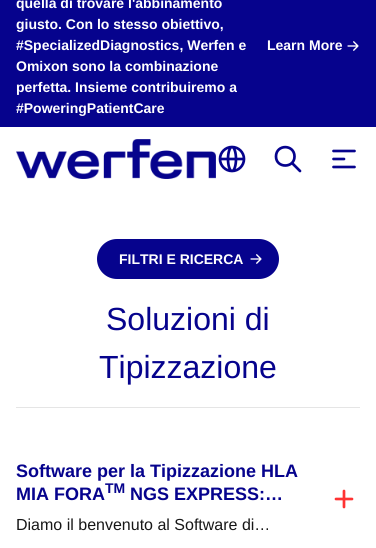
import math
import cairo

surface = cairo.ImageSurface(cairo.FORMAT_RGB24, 376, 548)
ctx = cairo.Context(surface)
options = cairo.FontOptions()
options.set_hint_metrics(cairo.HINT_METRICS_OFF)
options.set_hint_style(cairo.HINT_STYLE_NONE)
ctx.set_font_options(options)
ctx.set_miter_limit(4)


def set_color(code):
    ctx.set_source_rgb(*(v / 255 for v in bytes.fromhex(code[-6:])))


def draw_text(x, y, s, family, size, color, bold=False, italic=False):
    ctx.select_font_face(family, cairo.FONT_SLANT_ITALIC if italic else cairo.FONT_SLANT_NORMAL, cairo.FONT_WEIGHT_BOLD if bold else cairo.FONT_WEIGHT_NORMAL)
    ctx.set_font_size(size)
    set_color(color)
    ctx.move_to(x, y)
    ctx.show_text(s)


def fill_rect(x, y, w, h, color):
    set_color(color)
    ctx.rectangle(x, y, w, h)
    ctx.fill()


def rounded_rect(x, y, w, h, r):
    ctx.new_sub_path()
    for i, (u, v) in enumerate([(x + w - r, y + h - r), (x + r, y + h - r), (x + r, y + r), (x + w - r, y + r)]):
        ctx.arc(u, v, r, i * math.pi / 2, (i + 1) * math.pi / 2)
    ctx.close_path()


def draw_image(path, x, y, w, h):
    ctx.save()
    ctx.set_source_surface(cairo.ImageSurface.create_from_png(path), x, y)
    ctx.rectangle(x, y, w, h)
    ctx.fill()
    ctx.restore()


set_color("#ffffff")
ctx.paint()
fill_rect(0, 0, 376, 127, "#06038d")
draw_text(16, 8, "quella di trovare l'abbinamento", "Liberation Sans", 14, "#ffffff", bold=True)
draw_text(16, 29, "giusto. Con lo stesso obiettivo,", "Liberation Sans", 14, "#ffffff", bold=True)
draw_text(16, 50, "#SpecializedDiagnostics, Werfen e", "Liberation Sans", 14, "#ffffff", bold=True)
draw_text(16, 71, "Omixon sono la combinazione", "Liberation Sans", 14, "#ffffff", bold=True)
draw_text(16, 92, "perfetta. Insieme contribuiremo a", "Liberation Sans", 14, "#ffffff", bold=True)
draw_text(16, 113, "#PoweringPatientCare", "Liberation Sans", 14, "#ffffff", bold=True)
draw_text(267, 50, "Learn More", "Liberation Sans", 14, "#ffffff", bold=True)
draw_image("assets/img1.png", 347, 41, 12, 10)
draw_image("assets/img2.png", 16, 139, 200, 40)
draw_image("assets/img3.png", 218, 145, 28, 28)
ctx.new_path()
ctx.move_to(300, 171)
ctx.line_to(292, 163)
ctx.move_to(294.5, 156.5)
ctx.curve_to(294.5, 168.5, 276, 168.5, 276, 156.5)
ctx.curve_to(276, 144, 294.5, 144, 294.5, 156.5)
ctx.close_path()
set_color("#06038d")
ctx.set_line_width(2.7)
ctx.set_line_cap(cairo.LINE_CAP_ROUND)
ctx.set_line_join(cairo.LINE_JOIN_ROUND)
ctx.stroke()
ctx.new_path()
ctx.move_to(333.5, 151)
ctx.line_to(354.5, 151)
ctx.move_to(333.5, 159)
ctx.line_to(344, 159)
ctx.move_to(333.5, 167)
ctx.line_to(354.5, 167)
ctx.stroke()
rounded_rect(98, 240, 180, 38, 19)
ctx.fill_preserve()
ctx.set_line_width(2)
ctx.set_line_cap(cairo.LINE_CAP_BUTT)
ctx.set_line_join(cairo.LINE_JOIN_MITER)
ctx.stroke()
draw_text(119, 264, "FILTRI E RICERCA", "Liberation Sans", 14, "#ffffff", bold=True)
draw_image("assets/img1.png", 250, 254, 12, 10)
fill_rect(16, 407, 344, 1, "#e5e5e5")
draw_text(106, 330, "Soluzioni di", "Liberation Sans", 32, "#06038d")
draw_text(99, 378, "Tipizzazione", "Liberation Sans", 32, "#06038d")
draw_text(16, 477, "Software per la Tipizzazione HLA", "Liberation Sans", 18, "#06038d", bold=True)
draw_text(16, 500, "MIA FORA", "Liberation Sans", 18, "#06038d", bold=True)
draw_text(105, 493, "TM", "Liberation Sans", 14, "#06038d", bold=True)
draw_text(130, 500, "NGS EXPRESS:…", "Liberation Sans", 18, "#06038d", bold=True)
draw_text(16, 530, "Diamo il benvenuto al Software di…", "Liberation Sans", 16, "#171717")
ctx.new_path()
ctx.move_to(344, 491)
ctx.line_to(344, 499)
ctx.move_to(344, 499)
ctx.line_to(344, 507)
ctx.move_to(344, 499)
ctx.line_to(352, 499)
ctx.move_to(344, 499)
ctx.line_to(336, 499)
set_color("#ff3333")
ctx.set_line_width(2.7)
ctx.set_line_cap(cairo.LINE_CAP_ROUND)
ctx.set_line_join(cairo.LINE_JOIN_ROUND)
ctx.stroke()
surface.write_to_png("output.png")
